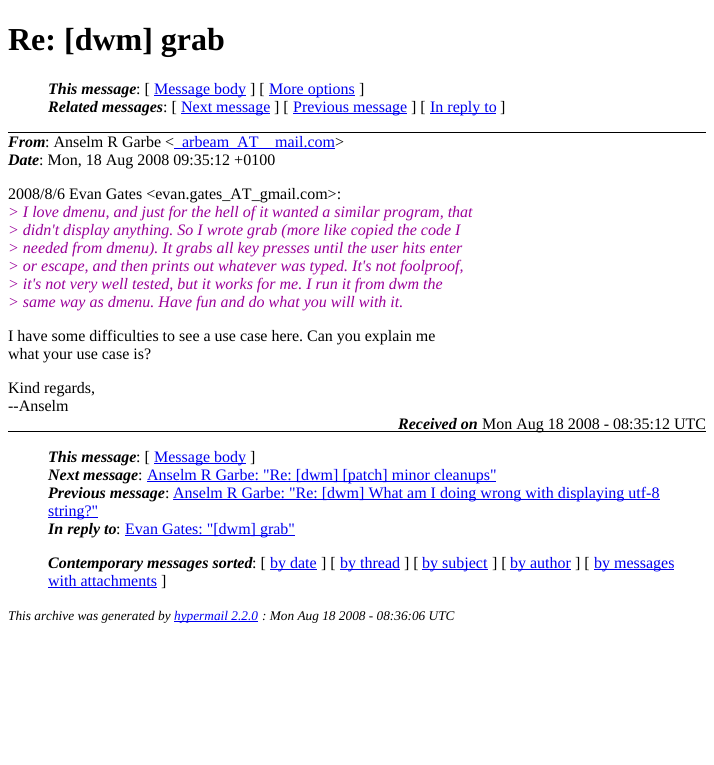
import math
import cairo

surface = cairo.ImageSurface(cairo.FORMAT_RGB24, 714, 765)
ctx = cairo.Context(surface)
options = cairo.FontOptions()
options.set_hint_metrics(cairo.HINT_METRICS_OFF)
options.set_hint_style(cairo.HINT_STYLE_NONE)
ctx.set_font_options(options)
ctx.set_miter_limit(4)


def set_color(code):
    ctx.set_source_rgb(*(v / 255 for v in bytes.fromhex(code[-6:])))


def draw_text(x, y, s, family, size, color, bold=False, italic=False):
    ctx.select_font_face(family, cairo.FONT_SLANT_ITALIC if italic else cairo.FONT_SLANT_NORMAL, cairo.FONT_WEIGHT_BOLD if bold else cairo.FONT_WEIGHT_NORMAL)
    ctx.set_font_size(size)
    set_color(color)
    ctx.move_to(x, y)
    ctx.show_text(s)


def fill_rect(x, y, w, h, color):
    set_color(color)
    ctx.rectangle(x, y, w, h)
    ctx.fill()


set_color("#ffffff")
ctx.paint()
fill_rect(8, 132, 698, 1, "#000000")
draw_text(8, 50, "Re: [dwm] grab", "Liberation Serif", 32, "#000000", bold=True)
draw_text(48, 94, "This message", "Liberation Serif", 16, "#000000", bold=True, italic=True)
draw_text(136, 94, ": [", "Liberation Serif", 16, "#000000")
fill_rect(154, 95, 92, 1, "#0000ee")
draw_text(154, 94, "Message body", "Liberation Serif", 16, "#0000ee")
draw_text(250, 94, "] [", "Liberation Serif", 16, "#000000")
fill_rect(269, 95, 86, 1, "#0000ee")
draw_text(269, 94, "More options", "Liberation Serif", 16, "#0000ee")
draw_text(359, 94, "]", "Liberation Serif", 16, "#000000")
draw_text(48, 112, "Related messages", "Liberation Serif", 16, "#000000", bold=True, italic=True)
draw_text(163, 112, ": [", "Liberation Serif", 16, "#000000")
fill_rect(181, 113, 89, 1, "#0000ee")
draw_text(181, 112, "Next message", "Liberation Serif", 16, "#0000ee")
draw_text(274, 112, "] [", "Liberation Serif", 16, "#000000")
fill_rect(293, 113, 114, 1, "#0000ee")
draw_text(293, 112, "Previous message", "Liberation Serif", 16, "#0000ee")
draw_text(411, 112, "] [", "Liberation Serif", 16, "#000000")
fill_rect(430, 113, 66, 1, "#0000ee")
draw_text(430, 112, "In reply to", "Liberation Serif", 16, "#0000ee")
draw_text(500, 112, "]", "Liberation Serif", 16, "#000000")
draw_text(8, 147, "From", "Liberation Serif", 16, "#000000", bold=True, italic=True)
draw_text(45, 147, ": Anselm R Garbe <", "Liberation Serif", 16, "#000000")
fill_rect(174, 148, 161, 1, "#0000ee")
draw_text(182, 147, "arbeam_AT", "Liberation Serif", 16, "#0000ee")
draw_text(275, 147, "mail.com", "Liberation Serif", 16, "#0000ee")
draw_text(335, 147, ">", "Liberation Serif", 16, "#000000")
draw_text(8, 165, "Date", "Liberation Serif", 16, "#000000", bold=True, italic=True)
draw_text(39, 165, ": Mon, 18 Aug 2008 09:35:12 +0100", "Liberation Serif", 16, "#000000")
draw_text(8, 199, "2008/8/6 Evan Gates <evan.gates_AT_gmail.com>:", "Liberation Serif", 16, "#000000")
draw_text(8, 217, "> I love dmenu, and just for the hell of it wanted a similar program, that", "Liberation Serif", 16, "#990099", italic=True)
draw_text(8, 235, "> didn't display anything. So I wrote grab (more like copied the code I", "Liberation Serif", 16, "#990099", italic=True)
draw_text(8, 253, "> needed from dmenu). It grabs all key presses until the user hits enter", "Liberation Serif", 16, "#990099", italic=True)
draw_text(8, 271, "> or escape, and then prints out whatever was typed. It's not foolproof,", "Liberation Serif", 16, "#990099", italic=True)
draw_text(8, 289, "> it's not very well tested, but it works for me. I run it from dwm the", "Liberation Serif", 16, "#990099", italic=True)
draw_text(8, 307, "> same way as dmenu. Have fun and do what you will with it.", "Liberation Serif", 16, "#990099", italic=True)
draw_text(8, 341, "I have some difficulties to see a use case here. Can you explain me", "Liberation Serif", 16, "#000000")
draw_text(8, 359, "what your use case is?", "Liberation Serif", 16, "#000000")
draw_text(8, 393, "Kind regards,", "Liberation Serif", 16, "#000000")
draw_text(8, 411, "--Anselm", "Liberation Serif", 16, "#000000")
draw_text(398, 429, "Received on", "Liberation Serif", 16, "#000000", bold=True, italic=True)
fill_rect(8, 431, 698, 1, "#000000")
draw_text(482, 429, "Mon Aug 18 2008 - 08:35:12 UTC", "Liberation Serif", 16, "#000000")
draw_text(48, 462, "This message", "Liberation Serif", 16, "#000000", bold=True, italic=True)
draw_text(136, 462, ": [", "Liberation Serif", 16, "#000000")
fill_rect(154, 463, 92, 1, "#0000ee")
draw_text(154, 462, "Message body", "Liberation Serif", 16, "#0000ee")
draw_text(250, 462, "]", "Liberation Serif", 16, "#000000")
draw_text(48, 480, "Next message", "Liberation Serif", 16, "#000000", bold=True, italic=True)
draw_text(138, 480, ":", "Liberation Serif", 16, "#000000")
fill_rect(147, 481, 349, 1, "#0000ee")
draw_text(147, 480, "Anselm R Garbe: \"Re: [dwm] [patch] minor cleanups\"", "Liberation Serif", 16, "#0000ee")
draw_text(48, 498, "Previous message", "Liberation Serif", 16, "#000000", bold=True, italic=True)
draw_text(165, 498, ":", "Liberation Serif", 16, "#000000")
fill_rect(173, 499, 487, 1, "#0000ee")
draw_text(173, 498, "Anselm R Garbe: \"Re: [dwm] What am I doing wrong with displaying utf-8", "Liberation Serif", 16, "#0000ee")
fill_rect(48, 517, 50, 1, "#0000ee")
draw_text(48, 516, "string?\"", "Liberation Serif", 16, "#0000ee")
draw_text(48, 534, "In reply to", "Liberation Serif", 16, "#000000", bold=True, italic=True)
draw_text(116, 534, ":", "Liberation Serif", 16, "#000000")
fill_rect(125, 535, 170, 1, "#0000ee")
draw_text(125, 534, "Evan Gates: \"[dwm] grab\"", "Liberation Serif", 16, "#0000ee")
draw_text(48, 568, "Contemporary messages sorted", "Liberation Serif", 16, "#000000", bold=True, italic=True)
draw_text(252, 568, ": [", "Liberation Serif", 16, "#000000")
fill_rect(270, 569, 47, 1, "#0000ee")
draw_text(270, 568, "by date", "Liberation Serif", 16, "#0000ee")
draw_text(321, 568, "] [", "Liberation Serif", 16, "#000000")
fill_rect(340, 569, 60, 1, "#0000ee")
draw_text(340, 568, "by thread", "Liberation Serif", 16, "#0000ee")
draw_text(404, 568, "] [", "Liberation Serif", 16, "#000000")
fill_rect(422, 569, 66, 1, "#0000ee")
draw_text(422, 568, "by subject", "Liberation Serif", 16, "#0000ee")
draw_text(492, 568, "] [", "Liberation Serif", 16, "#000000")
fill_rect(510, 569, 61, 1, "#0000ee")
draw_text(510, 568, "by author", "Liberation Serif", 16, "#0000ee")
draw_text(575, 568, "] [", "Liberation Serif", 16, "#000000")
fill_rect(594, 569, 80, 1, "#0000ee")
draw_text(594, 568, "by messages", "Liberation Serif", 16, "#0000ee")
draw_text(48, 586, "with attachments", "Liberation Serif", 16, "#0000ee")
fill_rect(48, 587, 109, 1, "#0000ee")
draw_text(161, 586, "]", "Liberation Serif", 16, "#000000")
draw_text(8, 620, "This archive was generated by", "Liberation Serif", 13.3, "#000000", italic=True)
fill_rect(174, 621, 84, 1, "#0000ee")
draw_text(174, 620, "hypermail 2.2.0", "Liberation Serif", 13.3, "#0000ee", italic=True)
draw_text(262, 620, ": Mon Aug 18 2008 - 08:36:06 UTC", "Liberation Serif", 13.3, "#000000", italic=True)
surface.write_to_png("output.png")
